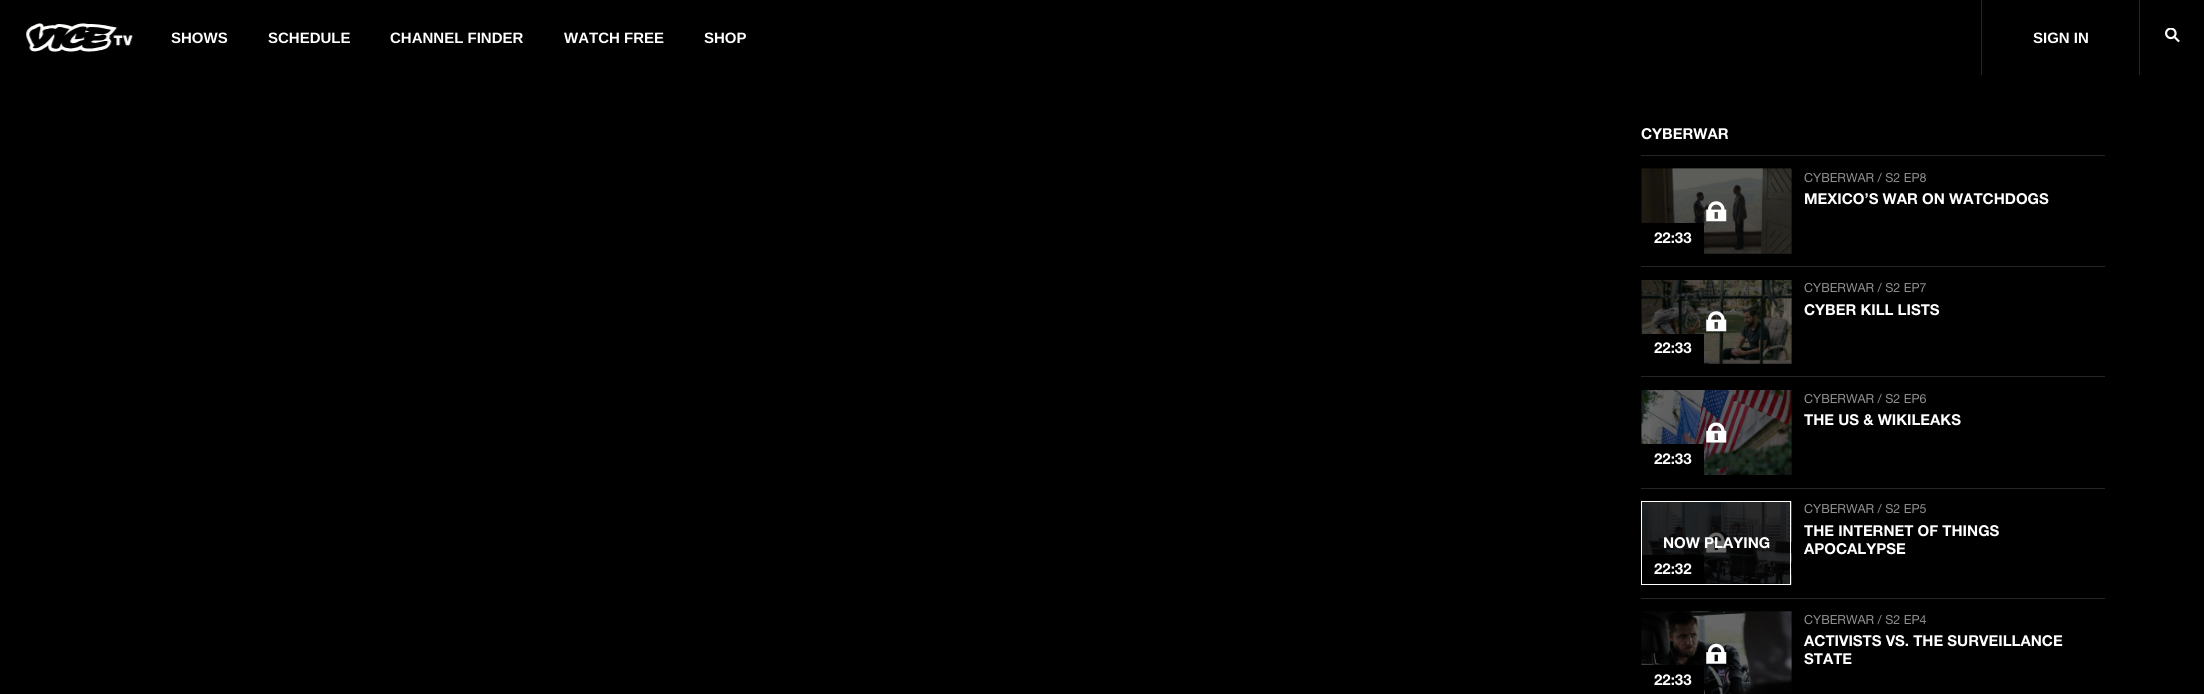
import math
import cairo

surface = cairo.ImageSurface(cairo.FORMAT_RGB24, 2204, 694)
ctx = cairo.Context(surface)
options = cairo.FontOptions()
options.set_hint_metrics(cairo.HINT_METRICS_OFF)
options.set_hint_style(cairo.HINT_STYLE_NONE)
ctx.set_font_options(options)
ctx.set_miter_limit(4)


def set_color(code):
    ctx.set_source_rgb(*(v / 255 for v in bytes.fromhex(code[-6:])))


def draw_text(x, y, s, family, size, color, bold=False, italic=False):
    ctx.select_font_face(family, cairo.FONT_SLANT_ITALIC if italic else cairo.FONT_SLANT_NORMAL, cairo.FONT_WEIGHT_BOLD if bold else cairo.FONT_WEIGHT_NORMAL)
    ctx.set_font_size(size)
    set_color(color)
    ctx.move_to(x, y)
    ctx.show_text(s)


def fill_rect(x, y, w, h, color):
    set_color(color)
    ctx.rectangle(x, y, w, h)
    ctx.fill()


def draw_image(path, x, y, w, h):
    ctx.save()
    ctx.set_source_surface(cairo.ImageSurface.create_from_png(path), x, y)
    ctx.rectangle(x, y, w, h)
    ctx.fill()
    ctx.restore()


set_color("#000000")
ctx.paint()
draw_image("assets/img1.png", 26, 23, 107, 29)
draw_text(171, 43, "SHOWS", "Liberation Sans", 15, "#ffffff", bold=True)
draw_text(268, 43, "SCHEDULE", "Liberation Sans", 15, "#ffffff", bold=True)
draw_text(390, 43, "CHANNEL FINDER", "Liberation Sans", 15, "#ffffff", bold=True)
draw_text(564, 43, "WATCH FREE", "Liberation Sans", 15, "#ffffff", bold=True)
draw_text(704, 43, "SHOP", "Liberation Sans", 15, "#ffffff", bold=True)
fill_rect(2139, 0, 1, 75, "#252525")
fill_rect(1981, 0, 1, 75, "#252525")
draw_text(2033, 43, "SIGN IN", "Liberation Sans", 15, "#ffffff", bold=True)
draw_image("assets/img2.png", 2165, 28, 15, 15)
fill_rect(1641, 155, 464, 1, "#252525")
draw_text(1641, 139, "CYBERWAR", "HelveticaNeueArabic", 15, "#ffffff", bold=True)
fill_rect(1641, 266, 464, 1, "#252525")
draw_text(1804, 182, "CYBERWAR / S2 EP8", "HelveticaNeueArabic", 12.5, "#909090")
draw_text(1804, 204, "MEXICO’S WAR ON WATCHDOGS", "HelveticaNeueArabic", 15, "#ffffff", bold=True)
draw_image("assets/img3.png", 1641, 168, 151, 86)
draw_image("assets/img4.png", 1706, 201, 21, 21)
fill_rect(1641, 223, 63, 31, "#000000")
draw_text(1654, 243, "22:33", "HelveticaNeueArabic", 15, "#ffffff", bold=True)
fill_rect(1641, 376, 464, 1, "#252525")
draw_text(1804, 292, "CYBERWAR / S2 EP7", "HelveticaNeueArabic", 12.5, "#909090")
draw_text(1804, 315, "CYBER KILL LISTS", "HelveticaNeueArabic", 15, "#ffffff", bold=True)
draw_image("assets/img5.png", 1641, 280, 151, 84)
draw_image("assets/img6.png", 1706, 311, 21, 21)
fill_rect(1641, 334, 63, 30, "#000000")
draw_text(1654, 353, "22:33", "HelveticaNeueArabic", 15, "#ffffff", bold=True)
fill_rect(1641, 488, 464, 1, "#252525")
draw_text(1804, 403, "CYBERWAR / S2 EP6", "HelveticaNeueArabic", 12.5, "#909090")
draw_text(1804, 425, "THE US & WIKILEAKS", "HelveticaNeueArabic", 15, "#ffffff", bold=True)
draw_image("assets/img7.png", 1641, 390, 151, 85)
draw_image("assets/img8.png", 1706, 422, 21, 21)
fill_rect(1641, 444, 63, 31, "#000000")
draw_text(1654, 464, "22:33", "HelveticaNeueArabic", 15, "#ffffff", bold=True)
fill_rect(1641, 598, 464, 1, "#252525")
draw_image("assets/img9.png", 1642, 501, 150, 84)
draw_image("assets/img10.png", 1706, 532, 21, 21)
fill_rect(1642, 555, 62, 29, "#000000")
ctx.rectangle(1641.5, 501.5, 149, 83)
set_color("#ffffff")
ctx.set_line_width(1)
ctx.stroke()
draw_text(1663, 548, "NOW PLAYING", "HelveticaNeueArabic", 15, "#ffffff", bold=True)
draw_text(1654, 574, "22:32", "HelveticaNeueArabic", 15, "#ffffff", bold=True)
draw_text(1804, 513, "CYBERWAR / S2 EP5", "HelveticaNeueArabic", 12.5, "#909090")
draw_text(1804, 536, "THE INTERNET OF THINGS", "HelveticaNeueArabic", 15, "#ffffff", bold=True)
draw_text(1804, 554, "APOCALYPSE", "HelveticaNeueArabic", 15, "#ffffff", bold=True)
draw_text(1804, 624, "CYBERWAR / S2 EP4", "HelveticaNeueArabic", 12.5, "#909090")
draw_text(1804, 646, "ACTIVISTS VS. THE SURVEILLANCE", "HelveticaNeueArabic", 15, "#ffffff", bold=True)
draw_text(1804, 664, "STATE", "HelveticaNeueArabic", 15, "#ffffff", bold=True)
draw_image("assets/img11.png", 1641, 611, 151, 83)
draw_image("assets/img12.png", 1706, 643, 21, 21)
fill_rect(1641, 665, 63, 29, "#000000")
draw_text(1654, 685, "22:33", "HelveticaNeueArabic", 15, "#ffffff", bold=True)
surface.write_to_png("output.png")
